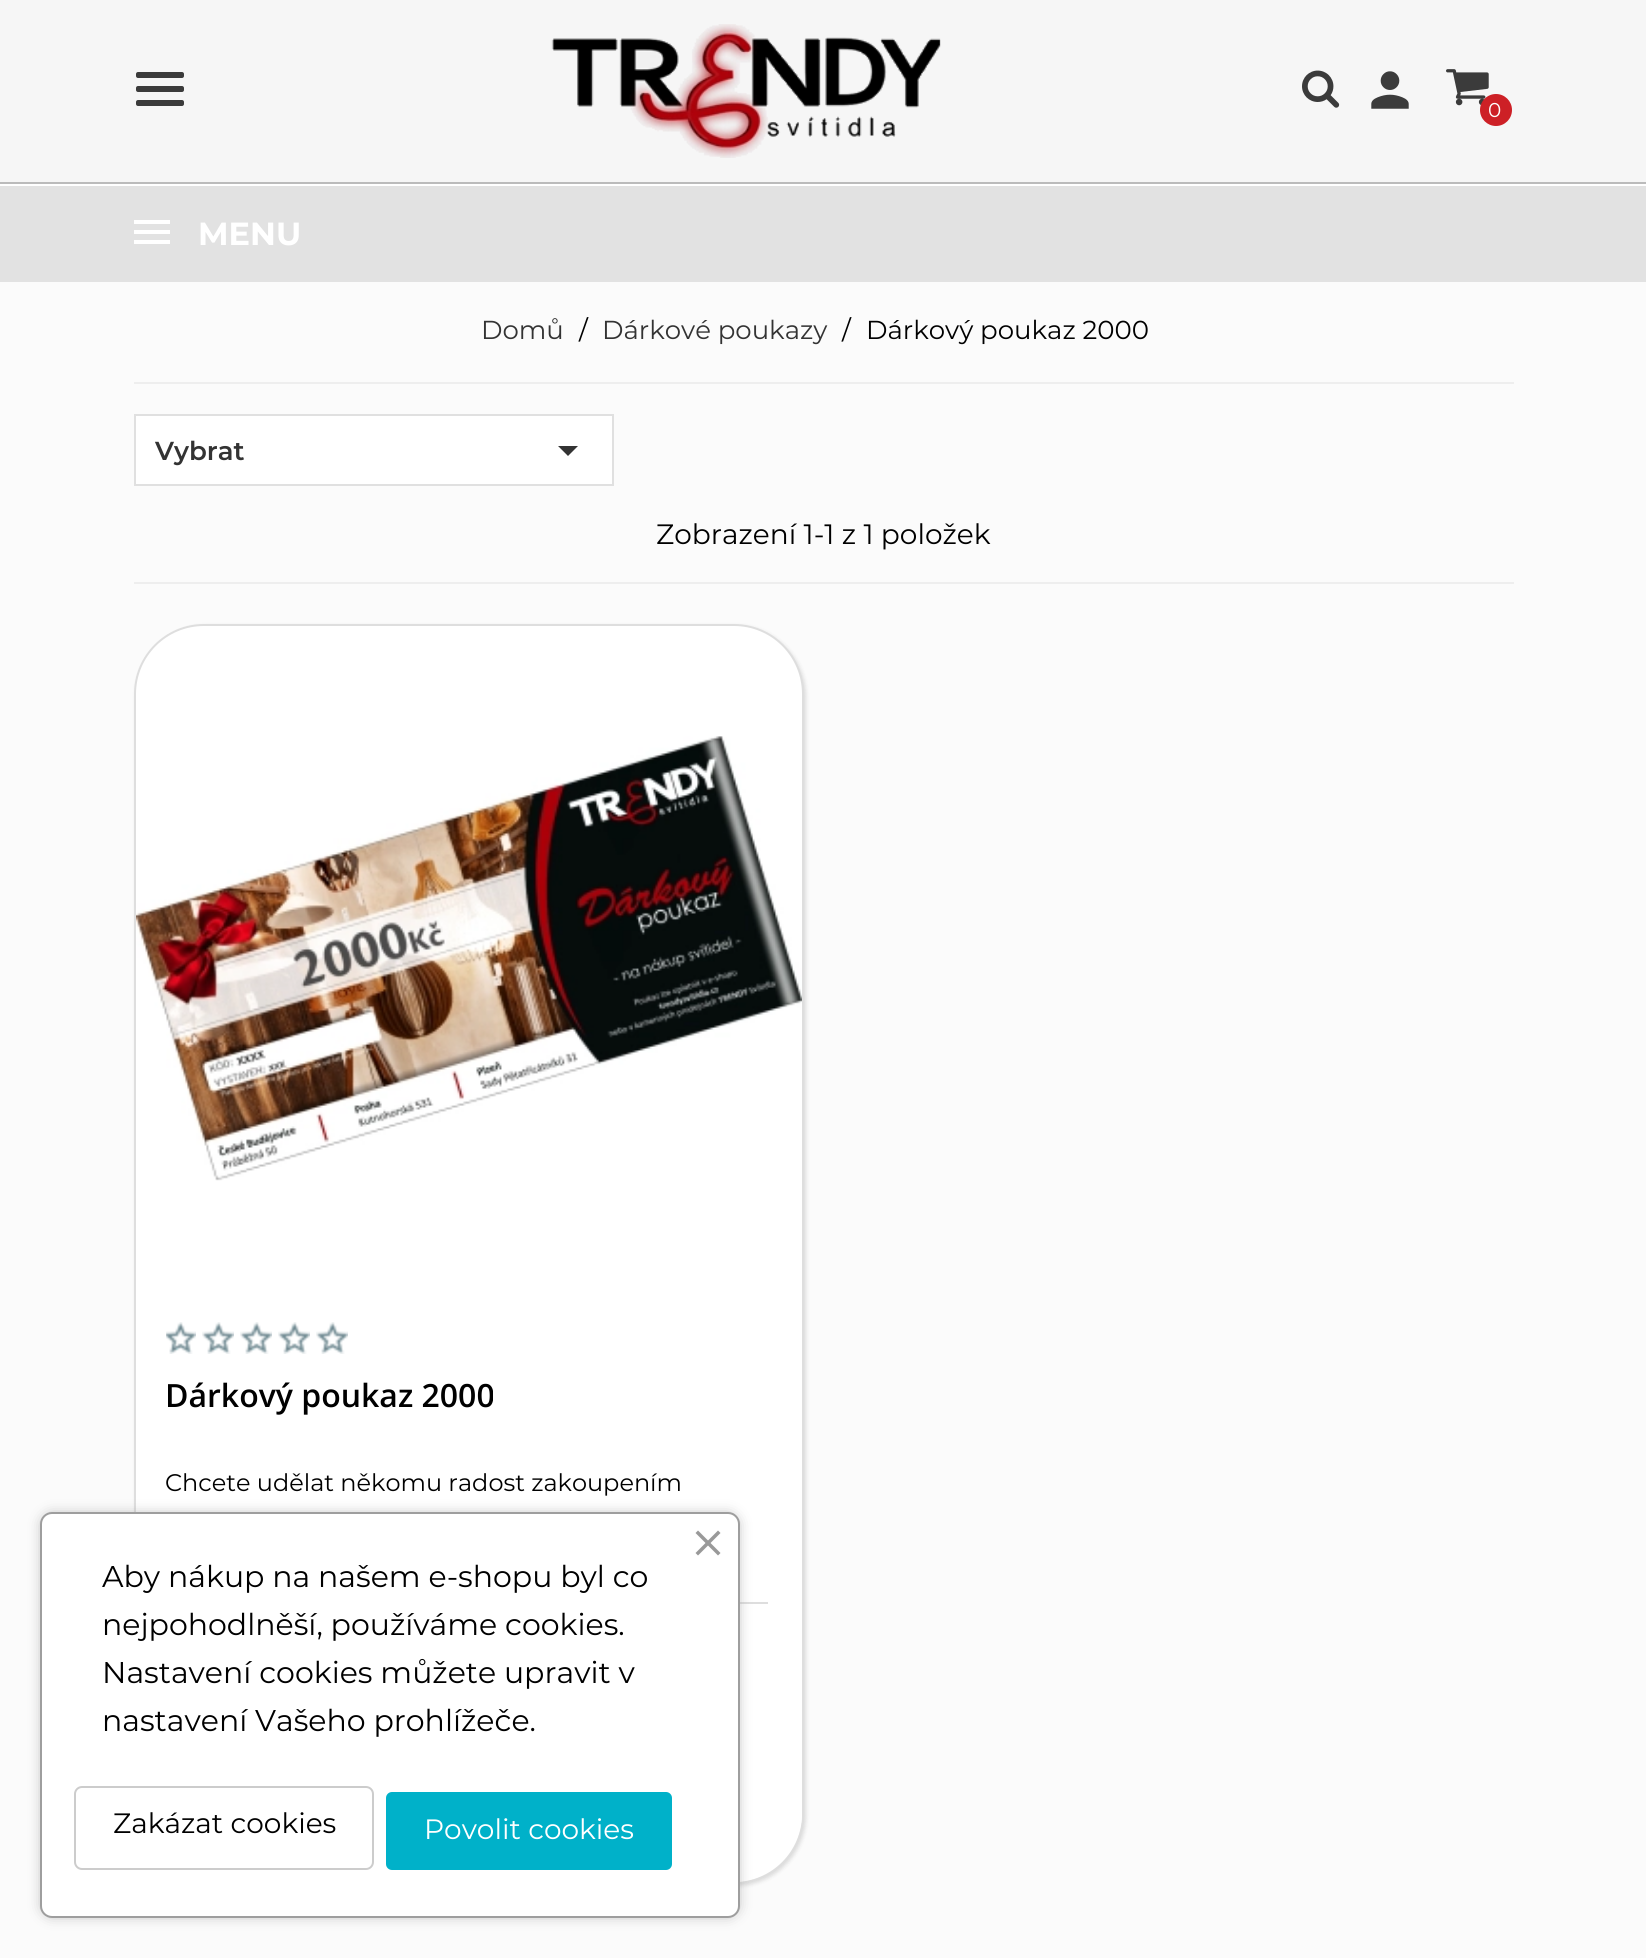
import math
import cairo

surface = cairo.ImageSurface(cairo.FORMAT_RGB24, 1646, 1958)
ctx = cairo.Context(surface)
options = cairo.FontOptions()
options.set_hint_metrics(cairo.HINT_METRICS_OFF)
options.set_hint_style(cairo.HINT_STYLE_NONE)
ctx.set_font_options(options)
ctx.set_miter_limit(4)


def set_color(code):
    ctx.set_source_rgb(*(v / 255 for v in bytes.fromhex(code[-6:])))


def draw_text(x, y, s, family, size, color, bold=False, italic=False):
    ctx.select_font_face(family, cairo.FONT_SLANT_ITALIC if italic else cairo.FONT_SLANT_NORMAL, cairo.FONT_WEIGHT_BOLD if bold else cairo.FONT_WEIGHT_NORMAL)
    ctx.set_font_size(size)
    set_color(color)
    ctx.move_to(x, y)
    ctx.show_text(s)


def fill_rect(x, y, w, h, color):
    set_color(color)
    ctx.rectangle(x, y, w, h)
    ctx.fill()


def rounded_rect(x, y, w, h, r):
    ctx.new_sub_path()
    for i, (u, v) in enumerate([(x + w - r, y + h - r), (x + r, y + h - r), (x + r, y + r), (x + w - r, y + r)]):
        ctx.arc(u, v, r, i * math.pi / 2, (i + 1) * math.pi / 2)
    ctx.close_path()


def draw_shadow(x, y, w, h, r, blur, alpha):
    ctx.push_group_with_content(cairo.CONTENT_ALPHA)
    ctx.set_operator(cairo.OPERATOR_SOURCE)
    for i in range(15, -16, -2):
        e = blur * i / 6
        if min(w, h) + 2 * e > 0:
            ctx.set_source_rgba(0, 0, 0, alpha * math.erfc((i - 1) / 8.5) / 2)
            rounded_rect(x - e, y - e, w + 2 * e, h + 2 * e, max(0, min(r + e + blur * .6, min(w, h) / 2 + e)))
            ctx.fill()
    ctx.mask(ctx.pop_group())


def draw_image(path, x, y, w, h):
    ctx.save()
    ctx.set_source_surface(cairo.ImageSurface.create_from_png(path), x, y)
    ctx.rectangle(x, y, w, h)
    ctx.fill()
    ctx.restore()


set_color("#fbfbfb")
ctx.paint()
fill_rect(0, 184, 1646, 2, "#ffffff")
fill_rect(0, 0, 1646, 182, "#f6f6f6")
fill_rect(0, 182, 1646, 2, "#bbbbbb")
set_color("#3b3b3b")
rounded_rect(136, 86, 48, 6, 2)
ctx.fill()
rounded_rect(136, 72, 48, 6, 2)
ctx.fill()
rounded_rect(136, 100, 48, 6, 2)
ctx.fill()
draw_image("assets/img1.png", 551, 24, 390, 134)
draw_image("assets/img2.png", 1302, 70, 38, 38)
draw_image("assets/img3.png", 1371, 71, 38, 38)
draw_image("assets/img4.png", 1446, 69, 43, 37)
set_color("#cd2026")
ctx.arc(1496, 110, 16, 0, 2 * math.pi)
ctx.fill()
draw_text(1488, 117, "0", "Montserrat", 20, "#ffffff")
fill_rect(0, 186, 1646, 96, "#e2e2e2")
fill_rect(134, 220, 36, 4, "#ffffff")
fill_rect(134, 230, 36, 4, "#ffffff")
fill_rect(134, 240, 36, 4, "#ffffff")
draw_text(198, 245, "MENU", "Montserrat", 32, "#ffffff", bold=True)
draw_text(481, 339, "Domů", "Montserrat", 26, "#333333")
draw_text(579, 339, "/", "Montserrat", 26, "#000000")
draw_text(602, 339, "Dárkové poukazy", "Montserrat", 26, "#333333")
draw_text(842, 339, "/", "Montserrat", 26, "#000000")
draw_text(866, 339, "Dárkový poukaz 2000", "Montserrat", 26, "#000000")
fill_rect(134, 382, 1380, 2, "#eeeeee")
fill_rect(134, 582, 1380, 2, "#eeeeee")
set_color("#ffffff")
ctx.rectangle(135, 415, 478, 70)
ctx.fill_preserve()
set_color("#e0e0e0")
ctx.stroke()
draw_text(155, 460, "Vybrat", "Montserrat SemiBold", 26, "#333333")
ctx.new_path()
ctx.move_to(558, 446)
ctx.line_to(578, 446)
ctx.line_to(568, 456)
ctx.close_path()
ctx.fill()
draw_text(656, 544, "Zobrazení 1-1 z 1 položek", "Montserrat", 28, "#000000")
set_color("#000000")
draw_shadow(136, 626, 670, 1260, 70, 2, 0.13)
set_color("#ffffff")
rounded_rect(135, 625, 668, 1258, 69)
ctx.fill_preserve()
set_color("#dedede")
ctx.stroke()
draw_image("assets/img5.png", 136, 736, 666, 445)
draw_image("assets/img6.png", 166, 1322, 30, 32)
draw_image("assets/img7.png", 202, 1322, 32, 32)
draw_image("assets/img7.png", 240, 1322, 32, 32)
draw_image("assets/img7.png", 278, 1322, 32, 32)
draw_image("assets/img7.png", 316, 1322, 32, 32)
draw_text(165, 1407, "Dárkový poukaz 2000", "Open Sans SemiBold", 32, "#000000")
draw_text(165, 1491, "Chcete udělat někomu radost zakoupením", "Montserrat", 24, "#000000")
ctx.save()
rounded_rect(136, 626, 666, 1256, 68)
ctx.clip()
set_color("#ffffff")
rounded_rect(136, 1602, 666, 280, 70)
ctx.fill()
ctx.restore()
fill_rect(740, 1602, 28, 2, "#dedede")
set_color("#9e9e9e")
draw_shadow(44, 1516, 692, 398, 8, 7, 1)
set_color("#ffffff")
rounded_rect(41, 1513, 698, 404, 11)
ctx.fill_preserve()
set_color("#9e9e9e")
ctx.stroke()
set_color("#999999")
ctx.new_path()
ctx.move_to(695.5, 1553)
ctx.line_to(718, 1530.5)
ctx.line_to(720.5, 1533)
ctx.line_to(698, 1555.5)
ctx.close_path()
ctx.fill()
ctx.new_path()
ctx.move_to(698, 1530.5)
ctx.line_to(720.5, 1553)
ctx.line_to(718, 1555.5)
ctx.line_to(695.5, 1533)
ctx.close_path()
ctx.fill()
draw_text(102, 1587, "Aby nákup na našem e-shopu byl co", "Montserrat", 30, "#000000")
draw_text(102, 1635, "nejpohodlněší, používáme cookies.", "Montserrat", 30, "#000000")
draw_text(102, 1683, "Nastavení cookies můžete upravit v", "Montserrat", 30, "#000000")
draw_text(102, 1731, "nastavení Vašeho prohlížeče.", "Montserrat", 30, "#000000")
rounded_rect(75, 1787, 298, 82, 7)
set_color("#cccccc")
ctx.stroke()
draw_text(113, 1833, "Zakázat cookies", "Montserrat", 28, "#000000")
set_color("#00b1c9")
rounded_rect(387, 1793, 284, 76, 5)
ctx.fill_preserve()
ctx.stroke()
draw_text(424, 1839, "Povolit cookies", "Montserrat", 28, "#ffffff")
surface.write_to_png("output.png")
